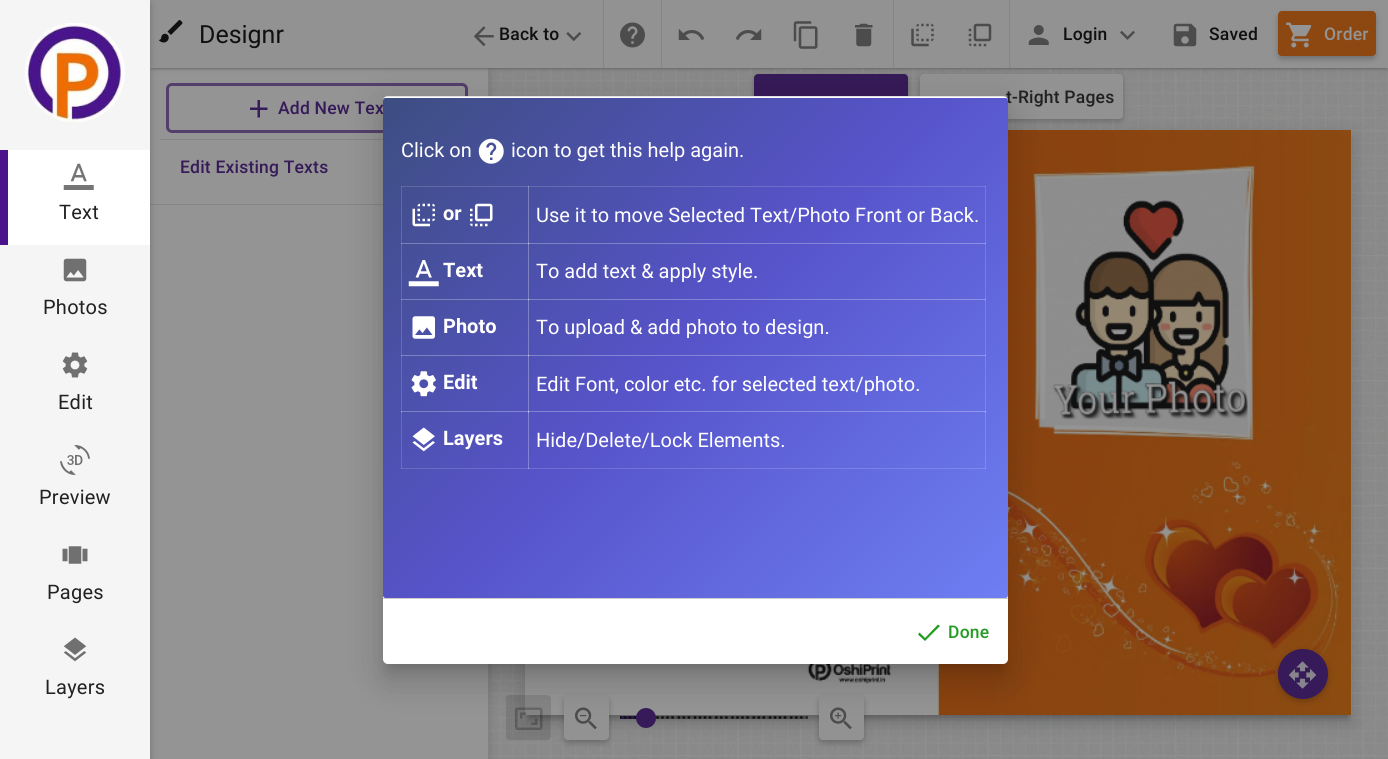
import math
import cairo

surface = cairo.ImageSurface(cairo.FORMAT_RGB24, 1388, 759)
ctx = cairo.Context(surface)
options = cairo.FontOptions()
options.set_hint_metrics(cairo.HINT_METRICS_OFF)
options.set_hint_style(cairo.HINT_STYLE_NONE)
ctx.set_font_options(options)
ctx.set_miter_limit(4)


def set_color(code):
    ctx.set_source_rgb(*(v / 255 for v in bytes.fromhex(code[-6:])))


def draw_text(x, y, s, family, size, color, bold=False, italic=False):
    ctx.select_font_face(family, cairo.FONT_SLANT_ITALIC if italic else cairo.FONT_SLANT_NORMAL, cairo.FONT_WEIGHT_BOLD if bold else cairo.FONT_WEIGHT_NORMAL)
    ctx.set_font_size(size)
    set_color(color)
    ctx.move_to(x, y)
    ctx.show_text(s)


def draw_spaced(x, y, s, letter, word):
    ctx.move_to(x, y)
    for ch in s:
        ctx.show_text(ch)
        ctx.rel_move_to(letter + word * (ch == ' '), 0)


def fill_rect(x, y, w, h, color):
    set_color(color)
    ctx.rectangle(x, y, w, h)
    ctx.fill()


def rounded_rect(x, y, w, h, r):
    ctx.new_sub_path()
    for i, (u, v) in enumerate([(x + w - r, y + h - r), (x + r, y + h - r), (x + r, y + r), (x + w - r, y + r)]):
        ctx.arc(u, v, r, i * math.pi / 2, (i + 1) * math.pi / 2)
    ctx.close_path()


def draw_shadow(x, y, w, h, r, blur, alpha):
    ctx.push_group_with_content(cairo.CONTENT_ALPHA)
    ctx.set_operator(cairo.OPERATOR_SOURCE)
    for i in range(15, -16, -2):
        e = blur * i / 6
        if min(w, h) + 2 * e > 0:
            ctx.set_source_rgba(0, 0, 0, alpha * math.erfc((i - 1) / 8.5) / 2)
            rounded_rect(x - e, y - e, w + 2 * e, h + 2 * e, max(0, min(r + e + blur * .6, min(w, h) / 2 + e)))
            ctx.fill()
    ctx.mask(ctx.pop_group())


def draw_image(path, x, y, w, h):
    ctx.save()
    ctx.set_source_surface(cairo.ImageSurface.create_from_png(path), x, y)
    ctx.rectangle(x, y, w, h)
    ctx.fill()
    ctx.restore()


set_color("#ffffff")
ctx.paint()
draw_image("assets/img15.png", 488, 68, 900, 691)
set_color("#101010")
draw_shadow(523, 131, 831, 590, 0, 9, 0.08)
draw_shadow(524, 139, 829, 587, 0, 6, 0.1)
draw_shadow(529, 140, 819, 578, 0, 3, 0.14)
draw_image("assets/img16.png", 525, 130, 827, 585)
draw_shadow(754, 76, 154, 45, 4, 3, 0.26)
set_color("#361a59")
rounded_rect(754, 74, 154, 45, 4)
ctx.fill()
set_color("#101010")
draw_shadow(920, 76, 203, 45, 4, 3, 0.26)
set_color("#929292")
rounded_rect(920, 74, 203, 45, 4)
ctx.fill()
ctx.save()
ctx.rectangle(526, 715, 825, 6)
ctx.clip()
set_color("#101010")
draw_shadow(529, 140, 819, 578, 0, 3, 0.14)
ctx.restore()
ctx.set_source_rgba(0.063, 0.063, 0.063, 0.12)
rounded_rect(506, 695, 45, 45, 4)
ctx.fill()
set_color("#101010")
draw_shadow(150, 69, 338, 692, 0, 6, 0.08)
draw_shadow(150, 73, 338, 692, 0, 3, 0.1)
draw_shadow(151, 71, 335, 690, 0, 2.5, 0.14)
fill_rect(150, 68, 338, 691, "#949494")
set_color("#101010")
draw_shadow(150, 1, 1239, 68, 0, 3, 0.08)
draw_shadow(150, 3, 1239, 67, 0, 1, 0.1)
draw_shadow(153, 6, 1233, 63, 0, 0.5, 0.14)
fill_rect(150, 0, 1238, 68, "#929292")
draw_image("assets/img1.png", 158, 20, 25, 23)
draw_text(199, 43, "Designr", "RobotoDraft", 25, "#101010")
draw_image("assets/img2.png", 473, 26, 21, 21)
ctx.select_font_face("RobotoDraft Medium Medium")
ctx.set_font_size(17.5)
draw_spaced(499, 40, "Back to", 0.2, 0)
draw_image("assets/img3.png", 566, 32, 16, 10)
fill_rect(603, 0, 1, 68, "#848484")
draw_image("assets/img4.png", 620, 22, 25, 26)
fill_rect(661, 0, 1, 68, "#848484")
draw_image("assets/img5.png", 678, 29, 27, 11)
draw_image("assets/img6.png", 735, 29, 27, 11)
draw_image("assets/img7.png", 793, 21, 25, 28)
draw_image("assets/img8.png", 855, 23, 18, 24)
fill_rect(893, 0, 1, 68, "#848484")
draw_image("assets/img9.png", 911, 23, 23, 24)
draw_image("assets/img10.png", 968, 23, 24, 24)
fill_rect(1009, 0, 1, 68, "#848484")
draw_image("assets/img11.png", 1028, 25, 21, 20)
set_color("#101010")
draw_spaced(1063, 40, "Login", 0.2, 0)
draw_image("assets/img12.png", 1120, 30, 15, 10)
draw_image("assets/img13.png", 1173, 23, 24, 24)
draw_spaced(1209, 40, "Saved", 0.2, 0)
set_color("#101010")
draw_shadow(1278, 14, 98, 45, 4, 3, 0.26)
set_color("#8c4810")
rounded_rect(1278, 11, 98, 45, 4)
ctx.fill()
draw_image("assets/img14.png", 1286, 22, 26, 26)
set_color("#949494")
draw_spaced(1324, 40, "Order", 0.2, 0)
set_color("#212121")
draw_spaced(1006, 103, "t-Right Pages", 0.2, 0)
set_color("#101010")
draw_shadow(1278, 651, 50, 50, 25, 3, 0.26)
set_color("#361a59")
ctx.arc(1303, 674, 25, 0, 2 * math.pi)
ctx.fill()
draw_image("assets/img17.png", 1288, 661, 29, 28)
draw_image("assets/img18.png", 515, 707, 28, 23)
set_color("#101010")
draw_shadow(564, 698, 45, 45, 4, 3, 0.26)
set_color("#929292")
rounded_rect(564, 695, 45, 45, 4)
ctx.fill()
draw_image("assets/img19.png", 575, 707, 22, 23)
fill_rect(620, 716, 17, 3, "#361a59")
ctx.set_source_rgba(0.063, 0.063, 0.063, 0.26)
ctx.rectangle(655, 716, 153, 3)
ctx.fill()
ctx.set_source_rgba(0.063, 0.063, 0.063, 0.12)
ctx.rectangle(620, 716, 188, 3)
ctx.fill()
draw_image("assets/img20.png", 620, 716, 188, 3)
set_color("#361a59")
ctx.arc(646, 718, 9, 0, 2 * math.pi)
ctx.fill_preserve()
ctx.stroke()
set_color("#101010")
draw_shadow(819, 698, 45, 45, 4, 3, 0.26)
set_color("#929292")
rounded_rect(819, 695, 45, 45, 4)
ctx.fill()
draw_image("assets/img21.png", 830, 707, 22, 23)
rounded_rect(167.5, 84.5, 299, 47, 4.5)
set_color("#523f6b")
ctx.set_line_width(3)
ctx.stroke()
draw_image("assets/img22.png", 250, 100, 18, 18)
set_color("#361a59")
draw_spaced(278, 114, "Add New Tex", 0.2, 0)
fill_rect(160, 139, 223, 1, "#848484")
set_color("#361a59")
draw_spaced(180, 173, "Edit Existing Texts", 0.2, 0)
fill_rect(150, 204, 233, 1, "#848484")
set_color("#000000")
draw_shadow(0, 1, 150, 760, 0, 6, 0.08)
draw_shadow(0, 5, 150, 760, 0, 3, 0.1)
draw_shadow(1, 4, 148, 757, 0, 2.5, 0.14)
fill_rect(0, 0, 150, 759, "#f5f5f5")
draw_image("assets/img23.png", 25, 23, 100, 99)
fill_rect(8, 150, 142, 95, "#ffffff")
fill_rect(0, 150, 8, 95, "#4a148c")
draw_image("assets/img24.png", 63, 163, 31, 27)
ctx.select_font_face("RobotoDraft")
ctx.set_font_size(20)
set_color("#212121")
draw_spaced(59, 219, "Text", 0.25, 0)
draw_image("assets/img25.png", 63, 258, 24, 24)
draw_spaced(43, 314, "Photos", 0.25, 0)
draw_image("assets/img26.png", 62, 352, 26, 26)
draw_spaced(58, 409, "Edit", 0.25, 0)
draw_image("assets/img27.png", 60, 445, 30, 30)
draw_spaced(39, 504, "Preview", 0.25, 0)
draw_image("assets/img28.png", 62, 546, 26, 18)
draw_spaced(47, 599, "Pages", 0.25, 0)
draw_image("assets/img29.png", 63, 637, 24, 25)
draw_spaced(45, 694, "Layers", 0.25, 0)
set_color("#000000")
draw_shadow(376, 98, 638, 580, 11, 19, 0.08)
draw_shadow(380, 114, 630, 572, 8, 15, 0.1)
draw_shadow(389, 113, 612, 555, 0, 6, 0.14)
set_color("#ffffff")
rounded_rect(383, 96, 625, 568, 5)
ctx.fill()
ctx.save()
rounded_rect(383, 96, 625, 568, 5)
ctx.clip()
ctx.set_source_rgba(0, 0, 0, 0.12)
ctx.rectangle(383, 96, 625, 1)
ctx.fill()
gradient = cairo.LinearGradient(414, 66, 976, 629)
gradient.add_color_stop_rgba(0, 0.239, 0.306, 0.506, 1)
gradient.add_color_stop_rgba(0.48, 0.341, 0.325, 0.788, 1)
gradient.add_color_stop_rgba(1, 0.431, 0.498, 0.953, 1)
ctx.set_source(gradient)
rounded_rect(383, 98, 625, 500, 2.5)
ctx.fill()
ctx.restore()
draw_text(401, 157, "Click on", "RobotoDraft", 20, "#ffffff")
draw_image("assets/img30.png", 478, 138, 26, 26)
draw_text(511, 157, "icon to get this help again.", "RobotoDraft", 20, "#ffffff")
ctx.set_source_rgba(1, 1, 1, 0.15)
ctx.rectangle(528, 186, 458, 1)
ctx.fill()
ctx.rectangle(528, 243, 458, 1)
ctx.fill()
ctx.rectangle(528, 299, 458, 1)
ctx.fill()
ctx.rectangle(528, 355, 458, 1)
ctx.fill()
ctx.rectangle(528, 411, 458, 1)
ctx.fill()
ctx.rectangle(985, 411, 1, 58)
ctx.fill()
ctx.rectangle(985, 355, 1, 58)
ctx.fill()
ctx.rectangle(985, 299, 1, 57)
ctx.fill()
ctx.rectangle(985, 243, 1, 57)
ctx.fill()
ctx.rectangle(985, 186, 1, 58)
ctx.fill()
ctx.rectangle(528, 468, 458, 1)
ctx.fill()
ctx.rectangle(528, 411, 1, 58)
ctx.fill()
ctx.rectangle(401, 411, 128, 1)
ctx.fill()
ctx.rectangle(528, 411, 1, 58)
ctx.fill()
ctx.rectangle(528, 411, 458, 1)
ctx.fill()
ctx.rectangle(528, 355, 1, 58)
ctx.fill()
ctx.rectangle(401, 355, 128, 1)
ctx.fill()
ctx.rectangle(528, 355, 1, 58)
ctx.fill()
ctx.rectangle(528, 355, 458, 1)
ctx.fill()
ctx.rectangle(528, 299, 1, 57)
ctx.fill()
ctx.rectangle(401, 299, 128, 1)
ctx.fill()
ctx.rectangle(528, 299, 1, 57)
ctx.fill()
ctx.rectangle(528, 299, 458, 1)
ctx.fill()
ctx.rectangle(528, 243, 1, 57)
ctx.fill()
ctx.rectangle(401, 243, 128, 1)
ctx.fill()
ctx.rectangle(528, 243, 1, 57)
ctx.fill()
ctx.rectangle(528, 243, 458, 1)
ctx.fill()
ctx.rectangle(528, 186, 1, 58)
ctx.fill()
ctx.rectangle(401, 186, 128, 1)
ctx.fill()
ctx.rectangle(528, 186, 1, 58)
ctx.fill()
ctx.rectangle(401, 468, 128, 1)
ctx.fill()
ctx.rectangle(401, 411, 1, 58)
ctx.fill()
ctx.rectangle(401, 411, 128, 1)
ctx.fill()
ctx.rectangle(401, 355, 1, 58)
ctx.fill()
ctx.rectangle(401, 355, 128, 1)
ctx.fill()
ctx.rectangle(401, 299, 1, 57)
ctx.fill()
ctx.rectangle(401, 299, 128, 1)
ctx.fill()
ctx.rectangle(401, 243, 1, 57)
ctx.fill()
ctx.rectangle(401, 243, 128, 1)
ctx.fill()
ctx.rectangle(401, 186, 1, 58)
ctx.fill()
draw_image("assets/img31.png", 412, 203, 23, 24)
draw_text(443, 220, "or", "RobotoDraft", 20, "#ffffff", bold=True)
draw_image("assets/img32.png", 470, 203, 23, 24)
draw_text(536, 222, "Use it to move Selected Text/Photo Front or Back.", "RobotoDraft", 20, "#ffffff")
draw_image("assets/img33.png", 408, 260, 31, 27)
draw_text(443, 277, "Text", "RobotoDraft", 20, "#ffffff", bold=True)
draw_text(536, 278, "To add text & apply style.", "RobotoDraft", 20, "#ffffff")
draw_image("assets/img34.png", 412, 316, 23, 23)
draw_text(443, 333, "Photo", "RobotoDraft", 20, "#ffffff", bold=True)
draw_text(536, 334, "To upload & add photo to design.", "RobotoDraft", 20, "#ffffff")
draw_image("assets/img35.png", 411, 371, 25, 26)
draw_text(443, 389, "Edit", "RobotoDraft", 20, "#ffffff", bold=True)
draw_text(536, 391, "Edit Font, color etc. for selected text/photo.", "RobotoDraft", 20, "#ffffff")
draw_image("assets/img36.png", 412, 427, 23, 25)
draw_text(443, 445, "Layers", "RobotoDraft", 20, "#ffffff", bold=True)
draw_text(536, 447, "Hide/Delete/Lock Elements.", "RobotoDraft", 20, "#ffffff")
fill_rect(383, 598, 625, 1, "#cccccc")
set_color("#259b24")
ctx.new_path()
ctx.move_to(925, 638)
ctx.line_to(938, 624.5)
ctx.line_to(940, 626)
ctx.line_to(925, 641)
ctx.line_to(918, 634.5)
ctx.line_to(919.5, 632.5)
ctx.close_path()
ctx.fill()
ctx.select_font_face("RobotoDraft Medium Medium")
ctx.set_font_size(17.5)
draw_spaced(948, 638, "Done", 0.2, 0)
surface.write_to_png("output.png")
